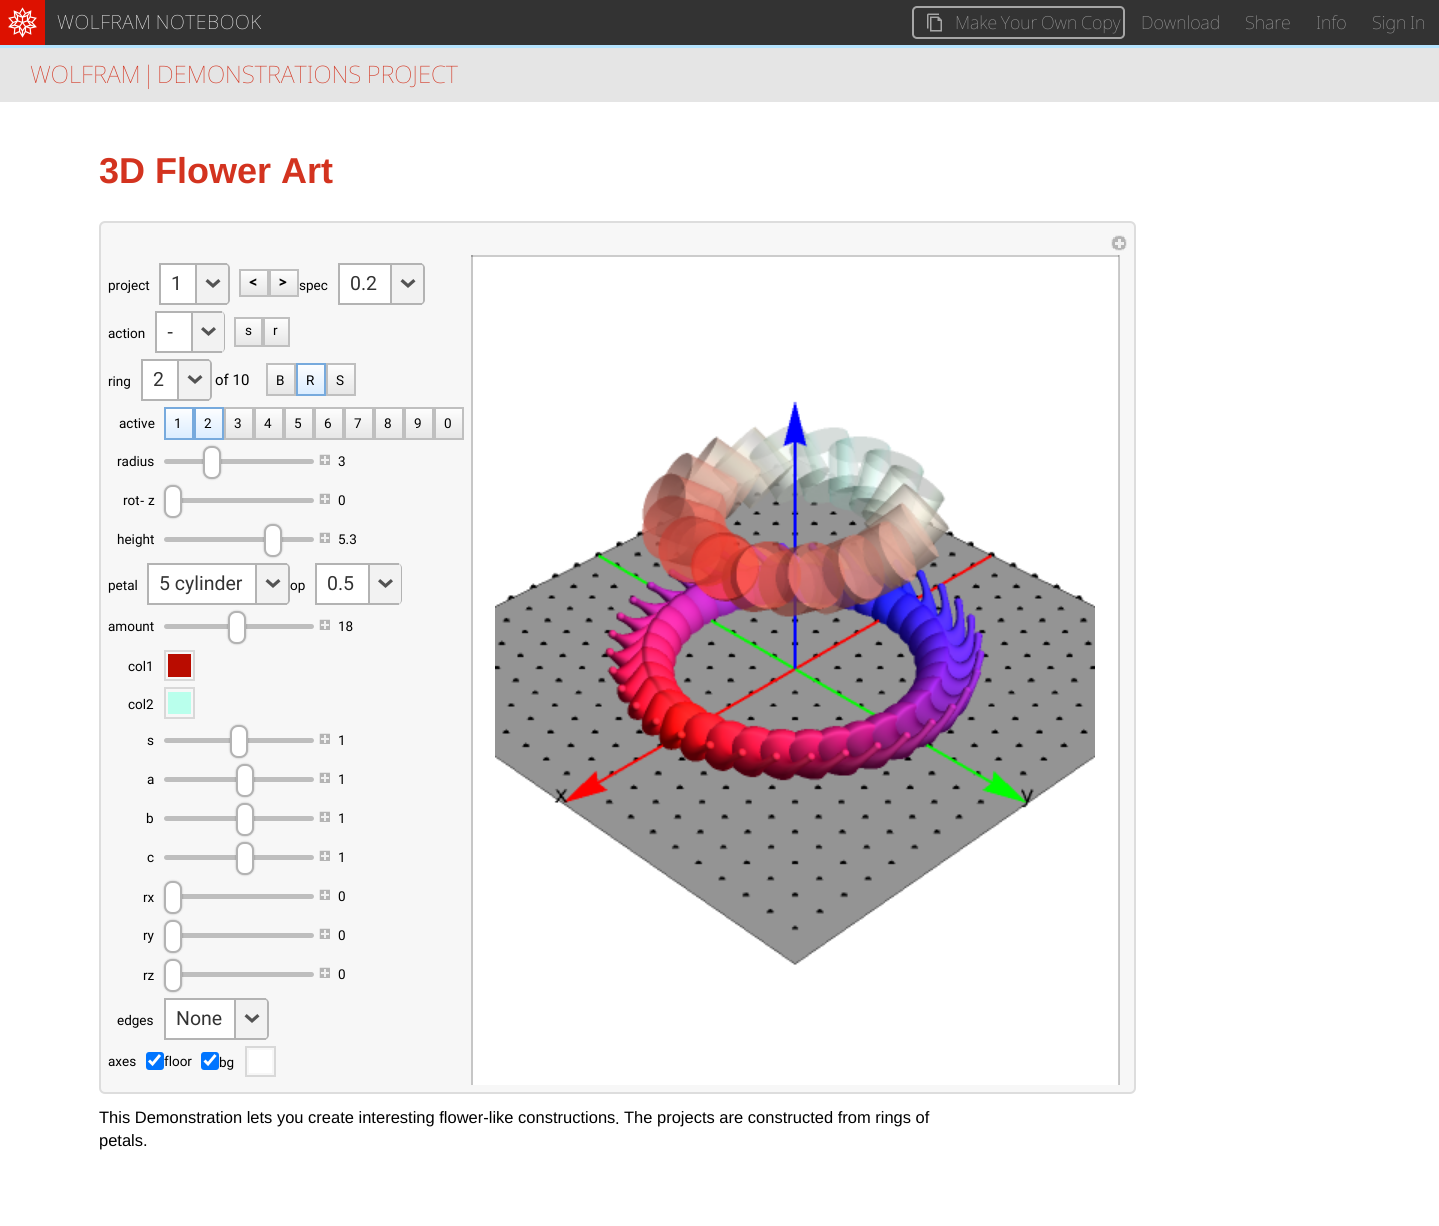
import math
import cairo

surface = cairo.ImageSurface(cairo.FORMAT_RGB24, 1439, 1226)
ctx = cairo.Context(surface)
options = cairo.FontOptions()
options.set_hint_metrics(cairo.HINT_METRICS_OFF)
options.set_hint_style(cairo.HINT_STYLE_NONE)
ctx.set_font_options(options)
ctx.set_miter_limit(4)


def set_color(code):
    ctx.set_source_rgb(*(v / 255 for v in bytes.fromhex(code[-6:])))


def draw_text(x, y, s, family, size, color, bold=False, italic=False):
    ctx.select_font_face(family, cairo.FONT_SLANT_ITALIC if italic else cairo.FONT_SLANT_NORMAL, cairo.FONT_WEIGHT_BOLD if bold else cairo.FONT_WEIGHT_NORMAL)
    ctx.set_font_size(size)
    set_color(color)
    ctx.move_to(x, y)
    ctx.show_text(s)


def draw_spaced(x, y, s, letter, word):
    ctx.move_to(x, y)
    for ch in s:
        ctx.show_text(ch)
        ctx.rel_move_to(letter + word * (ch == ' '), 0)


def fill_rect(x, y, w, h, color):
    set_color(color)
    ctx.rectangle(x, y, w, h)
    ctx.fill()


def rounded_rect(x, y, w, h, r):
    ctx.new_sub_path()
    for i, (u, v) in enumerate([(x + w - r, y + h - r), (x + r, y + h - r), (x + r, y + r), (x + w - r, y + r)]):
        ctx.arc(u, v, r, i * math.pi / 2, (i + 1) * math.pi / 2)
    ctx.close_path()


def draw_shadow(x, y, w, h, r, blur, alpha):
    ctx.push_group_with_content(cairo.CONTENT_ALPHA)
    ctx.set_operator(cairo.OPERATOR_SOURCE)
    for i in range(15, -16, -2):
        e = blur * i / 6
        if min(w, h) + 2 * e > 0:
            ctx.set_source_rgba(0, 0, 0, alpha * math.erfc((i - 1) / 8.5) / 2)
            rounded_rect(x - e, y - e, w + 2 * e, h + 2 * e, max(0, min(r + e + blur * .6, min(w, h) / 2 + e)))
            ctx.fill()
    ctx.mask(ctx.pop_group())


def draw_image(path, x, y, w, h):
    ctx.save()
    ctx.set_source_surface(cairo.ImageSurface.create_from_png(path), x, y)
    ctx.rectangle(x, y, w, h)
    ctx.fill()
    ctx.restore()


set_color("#333333")
ctx.paint()
fill_rect(0, 0, 45, 45, "#dd1100")
draw_image("assets/img1.png", 8, 7, 29, 31)
ctx.select_font_face("Noto Sans Thin")
ctx.set_font_size(19.5)
set_color("#ffffff")
draw_spaced(57, 29, "WOLFRAM NOTEBOOK", 0.6, -1)
rounded_rect(913, 7, 211, 31, 4)
set_color("#a6a6a6")
ctx.stroke()
draw_image("assets/img2.png", 927, 13, 15, 19)
ctx.set_font_size(18)
draw_spaced(955, 29, "Make Your Own Copy", 0, -1)
draw_text(1141, 29, "Download", "Noto Sans Thin", 18, "#a6a6a6")
draw_text(1245, 29, "Share", "Noto Sans Thin", 18, "#a6a6a6")
draw_text(1316, 29, "Info", "Noto Sans Thin", 18, "#a6a6a6")
draw_spaced(1372, 29, "Sign In", 0, -1)
fill_rect(0, 45, 1439, 3, "#b5e4ff")
fill_rect(0, 48, 1439, 54, "#e5e5e5")
draw_text(30, 83, "WOLFRAM", "Noto Sans Thin", 24, "#d3331f")
draw_text(142, 83, "|", "Noto Sans Thin", 24, "#d3331f")
draw_spaced(157, 83, "DEMONSTRATIONS PROJECT", 0, -1)
fill_rect(0, 102, 1439, 1124, "#ffffff")
draw_text(99, 183, "3D Flower Art", "Liberation Sans", 36, "#d3331f", bold=True)
set_color("#f7f7f7")
rounded_rect(100, 222, 1035, 871, 5)
ctx.fill_preserve()
set_color("#dddddd")
ctx.stroke()
draw_image("assets/img3.png", 1111, 235, 16, 16)
draw_text(108, 290, "project", "Roboto", 13.5, "#000000")
set_color("#ffffff")
ctx.new_path()
ctx.move_to(160, 264)
ctx.line_to(225, 264)
ctx.curve_to(227, 264, 229, 266, 229, 268)
ctx.line_to(229, 300)
ctx.curve_to(229, 302, 227, 304, 225, 304)
ctx.line_to(160, 304)
ctx.close_path()
ctx.fill_preserve()
set_color("#b3b3b3")
ctx.stroke()
draw_text(171, 290, "1", "Roboto", 19.5, "#333333")
set_color("#f2f2f2")
ctx.new_path()
ctx.move_to(195, 263)
ctx.line_to(223, 263)
ctx.curve_to(226, 263, 228, 265, 228, 268)
ctx.line_to(228, 300)
ctx.curve_to(228, 303, 226, 305, 223, 305)
ctx.line_to(195, 305)
ctx.close_path()
ctx.fill()
fill_rect(195, 263, 32, 2, "#b3b3b3")
fill_rect(195, 303, 32, 2, "#b3b3b3")
fill_rect(195, 263, 2, 42, "#b3b3b3")
draw_image("assets/img4.png", 205, 279, 16, 9)
gradient = cairo.LinearGradient(254, 269, 254, 297)
gradient.add_color_stop_rgba(0, 1, 1, 1, 1)
gradient.add_color_stop_rgba(1, 0.898, 0.898, 0.898, 1)
ctx.set_source(gradient)
ctx.rectangle(241, 271, 26, 24)
ctx.fill()
ctx.rectangle(240, 270, 28, 26)
set_color("#bfbfbf")
ctx.stroke()
draw_text(249, 287, "<", "Noto Sans Black", 13.5, "#000000")
gradient = cairo.LinearGradient(284, 269, 284, 297)
gradient.add_color_stop_rgba(0, 1, 1, 1, 1)
gradient.add_color_stop_rgba(1, 0.898, 0.898, 0.898, 1)
ctx.set_source(gradient)
ctx.rectangle(271, 271, 26, 24)
ctx.fill()
ctx.rectangle(270, 270, 28, 26)
set_color("#bfbfbf")
ctx.stroke()
draw_text(279, 287, ">", "Noto Sans Black", 13.5, "#000000")
draw_text(299, 290, "spec", "Roboto", 13.5, "#000000")
set_color("#ffffff")
ctx.new_path()
ctx.move_to(339, 264)
ctx.line_to(420, 264)
ctx.curve_to(422, 264, 424, 266, 424, 268)
ctx.line_to(424, 300)
ctx.curve_to(424, 302, 422, 304, 420, 304)
ctx.line_to(339, 304)
ctx.close_path()
ctx.fill_preserve()
set_color("#b3b3b3")
ctx.stroke()
draw_text(350, 290, "0.2", "Roboto", 19.5, "#333333")
set_color("#f2f2f2")
ctx.new_path()
ctx.move_to(390, 263)
ctx.line_to(418, 263)
ctx.curve_to(421, 263, 423, 265, 423, 268)
ctx.line_to(423, 300)
ctx.curve_to(423, 303, 421, 305, 418, 305)
ctx.line_to(390, 305)
ctx.close_path()
ctx.fill()
fill_rect(390, 263, 32, 2, "#b3b3b3")
fill_rect(390, 303, 32, 2, "#b3b3b3")
fill_rect(390, 263, 2, 42, "#b3b3b3")
draw_image("assets/img4.png", 400, 279, 16, 9)
draw_text(108, 338, "action", "Roboto", 13.5, "#000000")
set_color("#ffffff")
ctx.new_path()
ctx.move_to(156, 312)
ctx.line_to(220, 312)
ctx.curve_to(222, 312, 224, 314, 224, 316)
ctx.line_to(224, 348)
ctx.curve_to(224, 350, 222, 352, 220, 352)
ctx.line_to(156, 352)
ctx.close_path()
ctx.fill_preserve()
set_color("#b3b3b3")
ctx.stroke()
draw_text(167, 338, "-", "Noto Sans", 19.5, "#333333")
set_color("#f2f2f2")
ctx.new_path()
ctx.move_to(191, 311)
ctx.line_to(219, 311)
ctx.curve_to(222, 311, 224, 313, 224, 316)
ctx.line_to(224, 348)
ctx.curve_to(224, 351, 222, 353, 219, 353)
ctx.line_to(191, 353)
ctx.close_path()
ctx.fill()
fill_rect(191, 311, 31, 2, "#b3b3b3")
fill_rect(191, 351, 31, 2, "#b3b3b3")
fill_rect(191, 311, 2, 42, "#b3b3b3")
draw_image("assets/img5.png", 201, 327, 15, 9)
gradient = cairo.LinearGradient(248, 317, 248, 347)
gradient.add_color_stop_rgba(0, 1, 1, 1, 1)
gradient.add_color_stop_rgba(1, 0.898, 0.898, 0.898, 1)
ctx.set_source(gradient)
ctx.rectangle(236, 319, 25, 26)
ctx.fill()
ctx.rectangle(235, 318, 27, 28)
set_color("#bfbfbf")
ctx.stroke()
draw_text(245, 335, "s", "Roboto", 13.5, "#000000")
gradient = cairo.LinearGradient(276, 317, 276, 347)
gradient.add_color_stop_rgba(0, 1, 1, 1, 1)
gradient.add_color_stop_rgba(1, 0.898, 0.898, 0.898, 1)
ctx.set_source(gradient)
ctx.rectangle(265, 319, 23, 26)
ctx.fill()
ctx.rectangle(264, 318, 25, 28)
set_color("#bfbfbf")
ctx.stroke()
draw_text(273, 335, "r", "Roboto", 13.5, "#000000")
draw_text(108, 386, "ring", "Roboto", 13.5, "#000000")
set_color("#ffffff")
ctx.new_path()
ctx.move_to(142, 360)
ctx.line_to(207, 360)
ctx.curve_to(209, 360, 211, 362, 211, 364)
ctx.line_to(211, 396)
ctx.curve_to(211, 398, 209, 400, 207, 400)
ctx.line_to(142, 400)
ctx.close_path()
ctx.fill_preserve()
set_color("#b3b3b3")
ctx.stroke()
draw_text(153, 386, "2", "Roboto", 19.5, "#333333")
set_color("#f2f2f2")
ctx.new_path()
ctx.move_to(177, 359)
ctx.line_to(205, 359)
ctx.curve_to(208, 359, 210, 361, 210, 364)
ctx.line_to(210, 396)
ctx.curve_to(210, 399, 208, 401, 205, 401)
ctx.line_to(177, 401)
ctx.close_path()
ctx.fill()
fill_rect(177, 359, 32, 2, "#b3b3b3")
fill_rect(177, 399, 32, 2, "#b3b3b3")
fill_rect(177, 359, 2, 42, "#b3b3b3")
draw_image("assets/img4.png", 187, 375, 16, 9)
draw_text(215, 385, "of 10", "Roboto", 15, "#000000")
gradient = cairo.LinearGradient(281, 363, 281, 396)
gradient.add_color_stop_rgba(0, 1, 1, 1, 1)
gradient.add_color_stop_rgba(1, 0.898, 0.898, 0.898, 1)
ctx.set_source(gradient)
ctx.rectangle(268, 365, 26, 29)
ctx.fill()
ctx.rectangle(267, 364, 28, 31)
set_color("#bfbfbf")
ctx.stroke()
draw_text(276, 385, "B", "Roboto", 13.5, "#000000")
gradient = cairo.LinearGradient(311, 363, 311, 396)
gradient.add_color_stop_rgba(0, 1, 1, 1, 1)
gradient.add_color_stop_rgba(1, 0.851, 0.925, 1, 1)
ctx.set_source(gradient)
ctx.rectangle(298, 365, 26, 29)
ctx.fill()
ctx.rectangle(297, 364, 28, 31)
set_color("#77aadd")
ctx.stroke()
draw_text(306, 385, "R", "Roboto", 13.5, "#000000")
gradient = cairo.LinearGradient(341, 363, 341, 396)
gradient.add_color_stop_rgba(0, 1, 1, 1, 1)
gradient.add_color_stop_rgba(1, 0.898, 0.898, 0.898, 1)
ctx.set_source(gradient)
ctx.rectangle(328, 365, 26, 29)
ctx.fill()
ctx.rectangle(327, 364, 28, 31)
set_color("#bfbfbf")
ctx.stroke()
draw_text(336, 385, "S", "Roboto", 13.5, "#000000")
draw_text(119, 428, "active", "Roboto", 13.5, "#000000")
gradient = cairo.LinearGradient(179, 407, 179, 440)
gradient.add_color_stop_rgba(0, 1, 1, 1, 1)
gradient.add_color_stop_rgba(1, 0.851, 0.925, 1, 1)
ctx.set_source(gradient)
ctx.rectangle(166, 409, 26, 29)
ctx.fill()
ctx.rectangle(165, 408, 28, 31)
set_color("#77aadd")
ctx.stroke()
draw_text(174, 428, "1", "Roboto", 13.5, "#000000")
gradient = cairo.LinearGradient(209, 407, 209, 440)
gradient.add_color_stop_rgba(0, 1, 1, 1, 1)
gradient.add_color_stop_rgba(1, 0.851, 0.925, 1, 1)
ctx.set_source(gradient)
ctx.rectangle(196, 409, 26, 29)
ctx.fill()
ctx.rectangle(195, 408, 28, 31)
set_color("#77aadd")
ctx.stroke()
draw_text(204, 428, "2", "Roboto", 13.5, "#000000")
gradient = cairo.LinearGradient(239, 407, 239, 440)
gradient.add_color_stop_rgba(0, 1, 1, 1, 1)
gradient.add_color_stop_rgba(1, 0.898, 0.898, 0.898, 1)
ctx.set_source(gradient)
ctx.rectangle(226, 409, 26, 29)
ctx.fill()
ctx.rectangle(225, 408, 28, 31)
set_color("#bfbfbf")
ctx.stroke()
draw_text(234, 428, "3", "Roboto", 13.5, "#000000")
gradient = cairo.LinearGradient(269, 407, 269, 440)
gradient.add_color_stop_rgba(0, 1, 1, 1, 1)
gradient.add_color_stop_rgba(1, 0.898, 0.898, 0.898, 1)
ctx.set_source(gradient)
ctx.rectangle(256, 409, 26, 29)
ctx.fill()
ctx.rectangle(255, 408, 28, 31)
set_color("#bfbfbf")
ctx.stroke()
draw_text(264, 428, "4", "Roboto", 13.5, "#000000")
gradient = cairo.LinearGradient(299, 407, 299, 440)
gradient.add_color_stop_rgba(0, 1, 1, 1, 1)
gradient.add_color_stop_rgba(1, 0.898, 0.898, 0.898, 1)
ctx.set_source(gradient)
ctx.rectangle(286, 409, 26, 29)
ctx.fill()
ctx.rectangle(285, 408, 28, 31)
set_color("#bfbfbf")
ctx.stroke()
draw_text(294, 428, "5", "Roboto", 13.5, "#000000")
gradient = cairo.LinearGradient(329, 407, 329, 440)
gradient.add_color_stop_rgba(0, 1, 1, 1, 1)
gradient.add_color_stop_rgba(1, 0.898, 0.898, 0.898, 1)
ctx.set_source(gradient)
ctx.rectangle(316, 409, 26, 29)
ctx.fill()
ctx.rectangle(315, 408, 28, 31)
set_color("#bfbfbf")
ctx.stroke()
draw_text(324, 428, "6", "Roboto", 13.5, "#000000")
gradient = cairo.LinearGradient(359, 407, 359, 440)
gradient.add_color_stop_rgba(0, 1, 1, 1, 1)
gradient.add_color_stop_rgba(1, 0.898, 0.898, 0.898, 1)
ctx.set_source(gradient)
ctx.rectangle(346, 409, 26, 29)
ctx.fill()
ctx.rectangle(345, 408, 28, 31)
set_color("#bfbfbf")
ctx.stroke()
draw_text(354, 428, "7", "Roboto", 13.5, "#000000")
gradient = cairo.LinearGradient(389, 407, 389, 440)
gradient.add_color_stop_rgba(0, 1, 1, 1, 1)
gradient.add_color_stop_rgba(1, 0.898, 0.898, 0.898, 1)
ctx.set_source(gradient)
ctx.rectangle(376, 409, 26, 29)
ctx.fill()
ctx.rectangle(375, 408, 28, 31)
set_color("#bfbfbf")
ctx.stroke()
draw_text(384, 428, "8", "Roboto", 13.5, "#000000")
gradient = cairo.LinearGradient(419, 407, 419, 440)
gradient.add_color_stop_rgba(0, 1, 1, 1, 1)
gradient.add_color_stop_rgba(1, 0.898, 0.898, 0.898, 1)
ctx.set_source(gradient)
ctx.rectangle(406, 409, 26, 29)
ctx.fill()
ctx.rectangle(405, 408, 28, 31)
set_color("#bfbfbf")
ctx.stroke()
draw_text(414, 428, "9", "Roboto", 13.5, "#000000")
gradient = cairo.LinearGradient(449, 407, 449, 440)
gradient.add_color_stop_rgba(0, 1, 1, 1, 1)
gradient.add_color_stop_rgba(1, 0.898, 0.898, 0.898, 1)
ctx.set_source(gradient)
ctx.rectangle(436, 409, 26, 29)
ctx.fill()
ctx.rectangle(435, 408, 28, 31)
set_color("#bfbfbf")
ctx.stroke()
draw_text(444, 428, "0", "Roboto", 13.5, "#000000")
draw_text(117, 466, "radius", "Roboto", 13.5, "#000000")
set_color("#bebebe")
rounded_rect(164, 459, 150, 5, 2.5)
ctx.fill()
set_color("#000000")
draw_shadow(203, 446, 18, 33, 8, 1, 0.25)
set_color("#ffffff")
rounded_rect(204, 447, 16, 31, 7)
ctx.fill_preserve()
set_color("#b3b3b3")
ctx.stroke()
draw_image("assets/img6.png", 319, 454, 11, 11)
draw_text(338, 466, "3", "Roboto", 13.5, "#000000")
draw_text(123, 505, "rot", "Roboto", 13.5, "#000000")
draw_text(140, 505, "-", "Noto Sans", 13.5, "#000000")
draw_text(148, 505, "z", "Roboto", 13.5, "#000000")
set_color("#bebebe")
rounded_rect(164, 498, 150, 5, 2.5)
ctx.fill()
set_color("#000000")
draw_shadow(164, 485, 18, 33, 8, 1, 0.25)
set_color("#ffffff")
rounded_rect(165, 486, 16, 31, 7)
ctx.fill_preserve()
set_color("#b3b3b3")
ctx.stroke()
draw_image("assets/img6.png", 319, 493, 11, 11)
draw_text(338, 505, "0", "Roboto", 13.5, "#000000")
draw_text(117, 544, "height", "Roboto", 13.5, "#000000")
set_color("#bebebe")
rounded_rect(164, 537, 150, 5, 2.5)
ctx.fill()
set_color("#000000")
draw_shadow(264, 524, 18, 33, 8, 1, 0.25)
set_color("#ffffff")
rounded_rect(265, 525, 16, 31, 7)
ctx.fill_preserve()
set_color("#b3b3b3")
ctx.stroke()
draw_image("assets/img6.png", 319, 532, 11, 11)
draw_text(338, 544, "5.3", "Roboto", 13.5, "#000000")
draw_text(108, 590, "petal", "Roboto", 13.5, "#000000")
set_color("#ffffff")
ctx.new_path()
ctx.move_to(148, 564)
ctx.line_to(285, 564)
ctx.curve_to(287, 564, 289, 566, 289, 568)
ctx.line_to(289, 600)
ctx.curve_to(289, 602, 287, 604, 285, 604)
ctx.line_to(148, 604)
ctx.close_path()
ctx.fill_preserve()
set_color("#b3b3b3")
ctx.stroke()
draw_text(159, 590, "5 cylinder", "Roboto", 19.5, "#333333")
set_color("#f2f2f2")
ctx.new_path()
ctx.move_to(255, 563)
ctx.line_to(283, 563)
ctx.curve_to(286, 563, 288, 565, 288, 568)
ctx.line_to(288, 600)
ctx.curve_to(288, 603, 286, 605, 283, 605)
ctx.line_to(255, 605)
ctx.close_path()
ctx.fill()
fill_rect(255, 563, 32, 2, "#b3b3b3")
fill_rect(255, 603, 32, 2, "#b3b3b3")
fill_rect(255, 563, 2, 42, "#b3b3b3")
draw_image("assets/img4.png", 265, 579, 16, 9)
draw_text(290, 590, "op", "Roboto", 13.5, "#000000")
set_color("#ffffff")
ctx.new_path()
ctx.move_to(316, 564)
ctx.line_to(397, 564)
ctx.curve_to(399, 564, 401, 566, 401, 568)
ctx.line_to(401, 600)
ctx.curve_to(401, 602, 399, 604, 397, 604)
ctx.line_to(316, 604)
ctx.close_path()
ctx.fill_preserve()
set_color("#b3b3b3")
ctx.stroke()
draw_text(327, 590, "0.5", "Roboto", 19.5, "#333333")
set_color("#f2f2f2")
ctx.new_path()
ctx.move_to(368, 563)
ctx.line_to(396, 563)
ctx.curve_to(399, 563, 401, 565, 401, 568)
ctx.line_to(401, 600)
ctx.curve_to(401, 603, 399, 605, 396, 605)
ctx.line_to(368, 605)
ctx.close_path()
ctx.fill()
fill_rect(368, 563, 31, 2, "#b3b3b3")
fill_rect(368, 603, 31, 2, "#b3b3b3")
fill_rect(368, 563, 2, 42, "#b3b3b3")
draw_image("assets/img5.png", 378, 579, 15, 9)
draw_text(108, 631, "amount", "Roboto", 13.5, "#000000")
set_color("#bebebe")
rounded_rect(164, 624, 150, 5, 2.5)
ctx.fill()
set_color("#000000")
draw_shadow(228, 611, 18, 33, 8, 1, 0.25)
set_color("#ffffff")
rounded_rect(229, 612, 16, 31, 7)
ctx.fill_preserve()
set_color("#b3b3b3")
ctx.stroke()
draw_image("assets/img6.png", 319, 619, 11, 11)
draw_text(338, 631, "18", "Roboto", 13.5, "#000000")
draw_text(128, 671, "col1", "Roboto", 13.5, "#000000")
ctx.rectangle(165, 651, 29, 29)
set_color("#d8d8d8")
ctx.stroke()
fill_rect(168, 654, 23, 23, "#b90c00")
draw_text(128, 709, "col2", "Roboto", 13.5, "#000000")
ctx.rectangle(165, 688, 29, 30)
set_color("#d8d8d8")
ctx.stroke()
fill_rect(168, 692, 23, 22, "#b9ffec")
draw_text(147, 745, "s", "Roboto", 13.5, "#000000")
set_color("#bebebe")
rounded_rect(164, 738, 150, 5, 2.5)
ctx.fill()
set_color("#000000")
draw_shadow(230, 725, 18, 33, 8, 1, 0.25)
set_color("#ffffff")
rounded_rect(231, 726, 16, 31, 7)
ctx.fill_preserve()
set_color("#b3b3b3")
ctx.stroke()
draw_image("assets/img6.png", 319, 733, 11, 11)
draw_text(338, 745, "1", "Roboto", 13.5, "#000000")
draw_text(147, 784, "a", "Roboto", 13.5, "#000000")
set_color("#bebebe")
rounded_rect(164, 777, 150, 5, 2.5)
ctx.fill()
set_color("#000000")
draw_shadow(236, 764, 18, 33, 8, 1, 0.25)
set_color("#ffffff")
rounded_rect(237, 765, 16, 31, 7)
ctx.fill_preserve()
set_color("#b3b3b3")
ctx.stroke()
draw_image("assets/img6.png", 319, 772, 11, 11)
draw_text(338, 784, "1", "Roboto", 13.5, "#000000")
draw_text(146, 823, "b", "Roboto", 13.5, "#000000")
set_color("#bebebe")
rounded_rect(164, 816, 150, 5, 2.5)
ctx.fill()
set_color("#000000")
draw_shadow(236, 803, 18, 33, 8, 1, 0.25)
set_color("#ffffff")
rounded_rect(237, 804, 16, 31, 7)
ctx.fill_preserve()
set_color("#b3b3b3")
ctx.stroke()
draw_image("assets/img6.png", 319, 811, 11, 11)
draw_text(338, 823, "1", "Roboto", 13.5, "#000000")
draw_text(147, 862, "c", "Roboto", 13.5, "#000000")
set_color("#bebebe")
rounded_rect(164, 855, 150, 5, 2.5)
ctx.fill()
set_color("#000000")
draw_shadow(236, 842, 18, 33, 8, 1, 0.25)
set_color("#ffffff")
rounded_rect(237, 843, 16, 31, 7)
ctx.fill_preserve()
set_color("#b3b3b3")
ctx.stroke()
draw_image("assets/img6.png", 319, 850, 11, 11)
draw_text(338, 862, "1", "Roboto", 13.5, "#000000")
draw_text(143, 902, "rx", "Roboto", 13.5, "#000000")
set_color("#bebebe")
rounded_rect(164, 894, 150, 5, 2.5)
ctx.fill()
set_color("#000000")
draw_shadow(164, 881, 18, 33, 8, 1, 0.25)
set_color("#ffffff")
rounded_rect(165, 882, 16, 31, 7)
ctx.fill_preserve()
set_color("#b3b3b3")
ctx.stroke()
draw_image("assets/img6.png", 319, 889, 11, 11)
draw_text(338, 901, "0", "Roboto", 13.5, "#000000")
draw_text(143, 940, "ry", "Roboto", 13.5, "#000000")
set_color("#bebebe")
rounded_rect(164, 933, 150, 5, 2.5)
ctx.fill()
set_color("#000000")
draw_shadow(164, 920, 18, 33, 8, 1, 0.25)
set_color("#ffffff")
rounded_rect(165, 921, 16, 31, 7)
ctx.fill_preserve()
set_color("#b3b3b3")
ctx.stroke()
draw_image("assets/img6.png", 319, 928, 11, 11)
draw_text(338, 940, "0", "Roboto", 13.5, "#000000")
draw_text(143, 980, "rz", "Roboto", 13.5, "#000000")
set_color("#bebebe")
rounded_rect(164, 972, 150, 5, 2.5)
ctx.fill()
set_color("#000000")
draw_shadow(164, 959, 18, 33, 8, 1, 0.25)
set_color("#ffffff")
rounded_rect(165, 960, 16, 31, 7)
ctx.fill_preserve()
set_color("#b3b3b3")
ctx.stroke()
draw_image("assets/img6.png", 319, 967, 11, 11)
draw_text(338, 979, "0", "Roboto", 13.5, "#000000")
draw_text(117, 1025, "edges", "Roboto", 13.5, "#000000")
set_color("#ffffff")
ctx.new_path()
ctx.move_to(165, 999)
ctx.line_to(264, 999)
ctx.curve_to(266, 999, 268, 1001, 268, 1003)
ctx.line_to(268, 1035)
ctx.curve_to(268, 1037, 266, 1039, 264, 1039)
ctx.line_to(165, 1039)
ctx.close_path()
ctx.fill_preserve()
set_color("#b3b3b3")
ctx.stroke()
draw_text(176, 1025, "None", "Roboto", 19.5, "#333333")
set_color("#f2f2f2")
ctx.new_path()
ctx.move_to(234, 998)
ctx.line_to(262, 998)
ctx.curve_to(265, 998, 267, 1000, 267, 1003)
ctx.line_to(267, 1035)
ctx.curve_to(267, 1038, 265, 1040, 262, 1040)
ctx.line_to(234, 1040)
ctx.close_path()
ctx.fill()
fill_rect(234, 998, 32, 2, "#b3b3b3")
fill_rect(234, 1038, 32, 2, "#b3b3b3")
fill_rect(234, 998, 2, 42, "#b3b3b3")
draw_image("assets/img4.png", 244, 1014, 16, 9)
draw_text(108, 1066, "axes", "Roboto", 13.5, "#000000")
set_color("#0075ff")
rounded_rect(146, 1052, 18, 18, 3)
ctx.fill()
ctx.new_path()
ctx.move_to(149, 1060.5)
ctx.line_to(152.5, 1064)
ctx.line_to(160, 1055)
set_color("#ffffff")
ctx.set_line_width(2.9)
ctx.stroke()
draw_text(164, 1066, "floor", "Roboto", 13.5, "#000000")
set_color("#0075ff")
rounded_rect(201, 1052, 18, 18, 3)
ctx.fill()
ctx.new_path()
ctx.move_to(204.5, 1060.5)
ctx.line_to(208, 1064)
ctx.line_to(215.5, 1055)
set_color("#ffffff")
ctx.stroke()
draw_text(219, 1067, "bg", "Roboto", 13.5, "#000000")
ctx.rectangle(246, 1047, 29, 29)
set_color("#d8d8d8")
ctx.set_line_width(2)
ctx.stroke()
fill_rect(249, 1050, 23, 23, "#ffffff")
fill_rect(473, 255, 646, 830, "#ffffff")
ctx.set_source_rgba(0, 0, 0, 0.2)
ctx.rectangle(471, 255, 648, 2)
ctx.fill()
ctx.rectangle(1118, 255, 2, 830)
ctx.fill()
ctx.rectangle(471, 255, 2, 830)
ctx.fill()
draw_image("assets/img7.png", 495, 401, 600, 564)
draw_text(99, 1123, "This Demonstration lets you create interesting flower-like constructions", "Liberation Sans", 16.5, "#000000")
draw_text(615, 1124, ".", "Liberation Sans", 16.5, "#000000")
draw_text(624, 1123, "The projects are constructed from rings of", "Liberation Sans", 16.5, "#000000")
draw_text(99, 1146, "petals.", "Liberation Sans", 16.5, "#000000")
surface.write_to_png("output.png")
